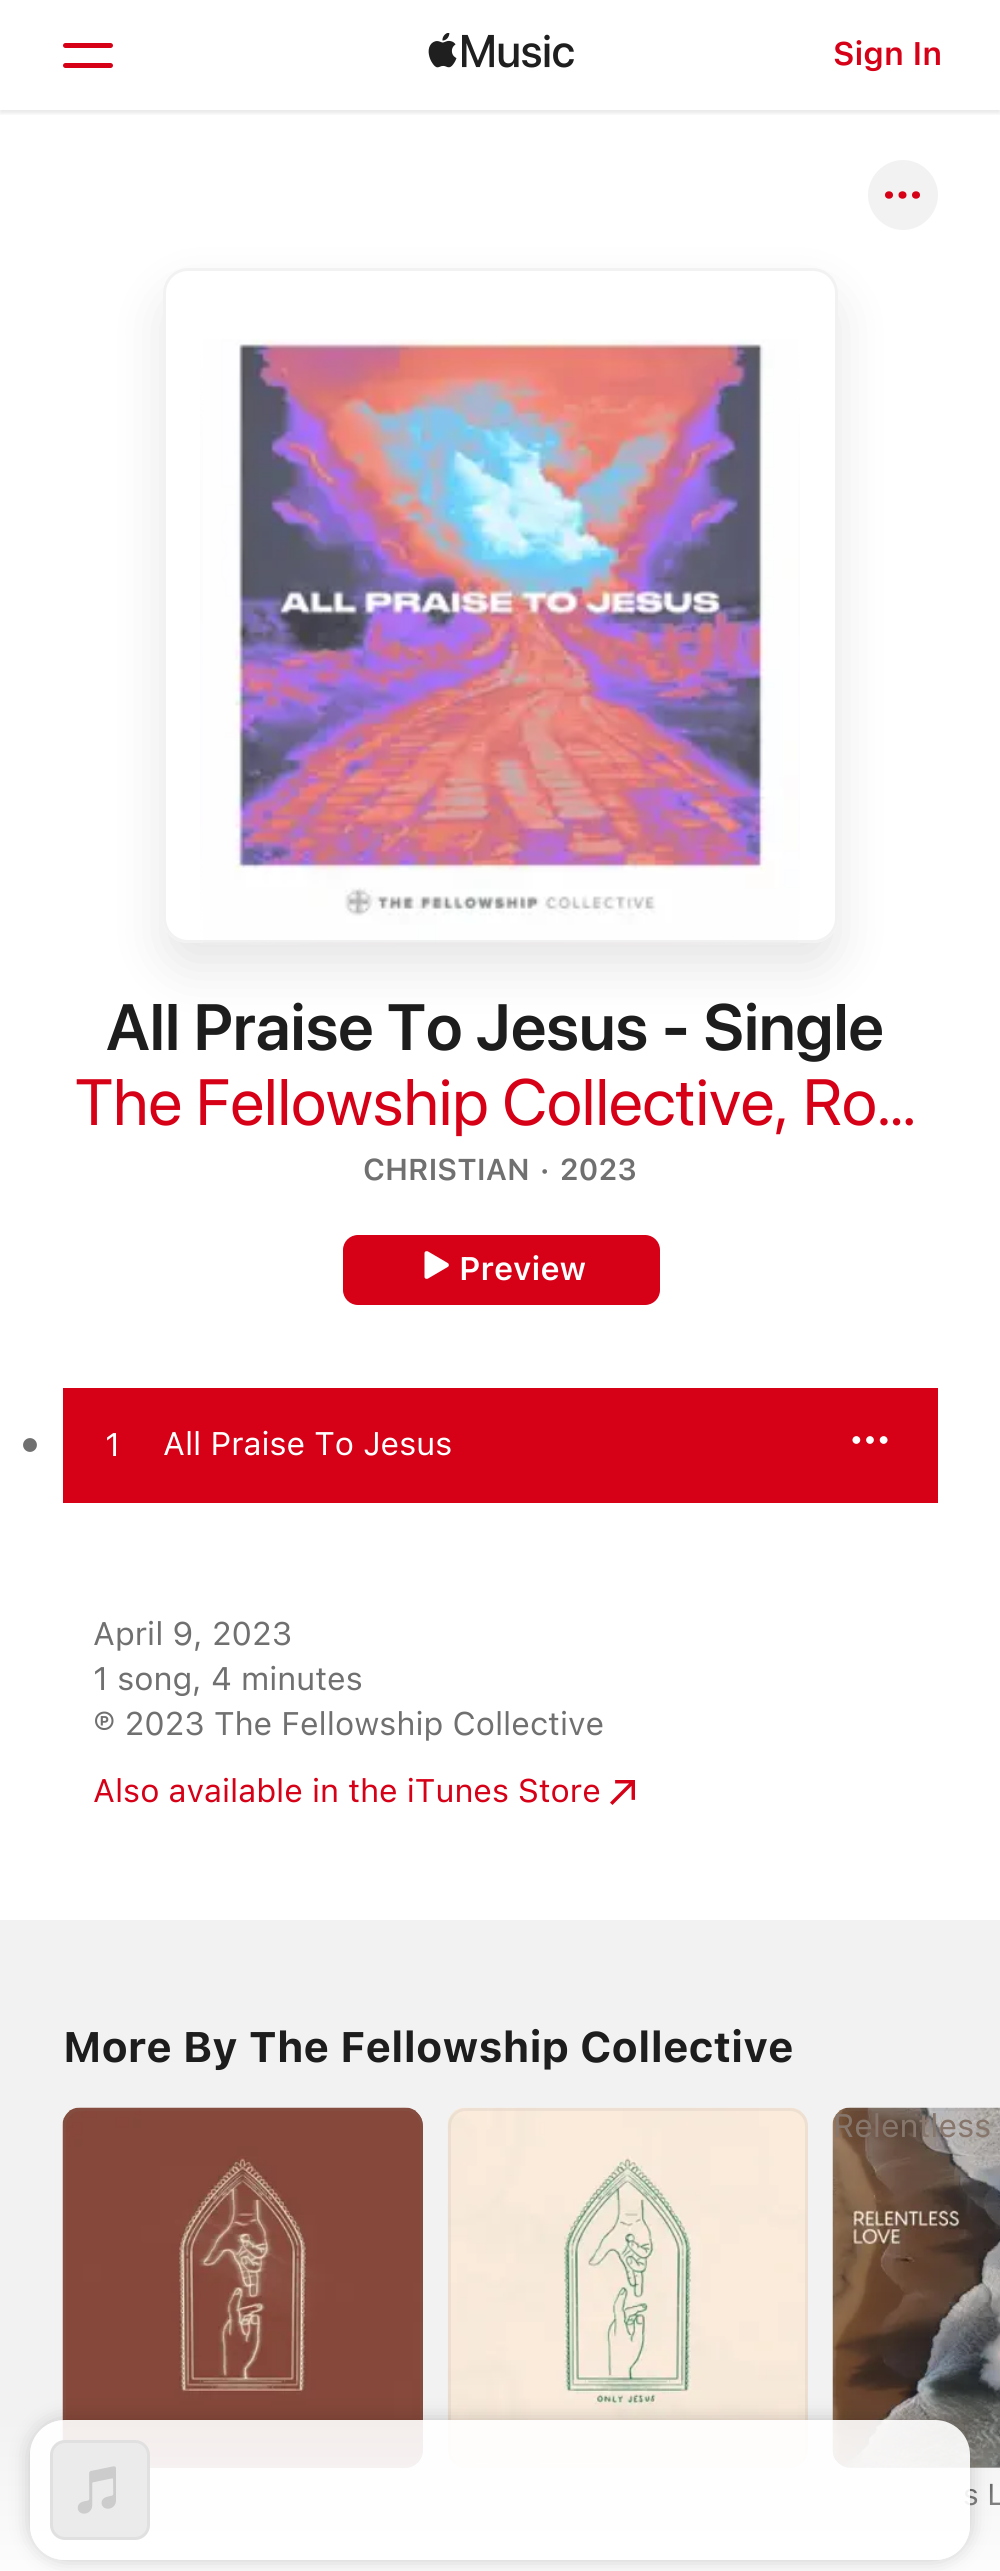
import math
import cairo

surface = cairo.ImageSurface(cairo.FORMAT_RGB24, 1000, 2571)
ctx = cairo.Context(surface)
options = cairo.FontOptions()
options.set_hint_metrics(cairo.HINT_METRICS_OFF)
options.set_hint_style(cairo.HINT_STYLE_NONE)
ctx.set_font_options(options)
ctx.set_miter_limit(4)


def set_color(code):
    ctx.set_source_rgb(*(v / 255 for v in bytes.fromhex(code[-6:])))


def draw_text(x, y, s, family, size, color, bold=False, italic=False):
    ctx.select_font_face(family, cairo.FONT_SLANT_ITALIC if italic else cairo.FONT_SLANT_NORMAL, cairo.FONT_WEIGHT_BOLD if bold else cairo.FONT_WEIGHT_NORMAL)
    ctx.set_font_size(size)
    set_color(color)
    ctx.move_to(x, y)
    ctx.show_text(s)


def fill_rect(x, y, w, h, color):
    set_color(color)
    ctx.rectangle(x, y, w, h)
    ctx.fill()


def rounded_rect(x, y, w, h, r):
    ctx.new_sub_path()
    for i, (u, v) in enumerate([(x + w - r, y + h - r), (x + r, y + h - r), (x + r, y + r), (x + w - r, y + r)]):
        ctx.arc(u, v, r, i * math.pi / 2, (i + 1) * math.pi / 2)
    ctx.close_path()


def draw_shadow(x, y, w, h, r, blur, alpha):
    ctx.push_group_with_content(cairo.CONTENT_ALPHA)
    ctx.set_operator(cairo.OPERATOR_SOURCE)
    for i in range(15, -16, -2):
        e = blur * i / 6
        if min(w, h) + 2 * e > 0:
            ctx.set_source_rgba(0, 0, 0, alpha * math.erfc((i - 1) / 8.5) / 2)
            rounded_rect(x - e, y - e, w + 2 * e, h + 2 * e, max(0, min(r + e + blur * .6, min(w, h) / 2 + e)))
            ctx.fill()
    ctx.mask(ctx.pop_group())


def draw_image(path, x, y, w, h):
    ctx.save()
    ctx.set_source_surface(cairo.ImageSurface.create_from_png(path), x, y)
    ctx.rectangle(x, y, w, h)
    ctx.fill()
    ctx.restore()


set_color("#ffffff")
ctx.paint()
ctx.save()
ctx.rectangle(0, 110, 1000, 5)
ctx.clip()
set_color("#000000")
draw_shadow(0, 3, 1000, 110, 0, 2.5, 0.1)
ctx.restore()
set_color("#d60017")
rounded_rect(63, 43, 50, 5, 2.5)
ctx.fill()
rounded_rect(63, 63, 50, 5, 2.5)
ctx.fill()
draw_image("assets/img1.png", 428, 33, 146, 35)
draw_text(833, 65, "Sign In", "SF SemiBold", 32.5, "#d60017")
set_color("#f2f2f2")
ctx.new_path()
ctx.move_to(903, 160)
ctx.curve_to(922, 160, 938, 176, 938, 195)
ctx.curve_to(938, 214, 922, 230, 903, 230)
ctx.curve_to(884, 230, 868, 214, 868, 195)
ctx.curve_to(868, 176, 884, 160, 903, 160)
ctx.close_path()
ctx.fill()
set_color("#d60017")
ctx.new_path()
ctx.move_to(893, 195)
ctx.curve_to(893, 190, 885, 190, 885, 195)
ctx.curve_to(885, 200, 893, 200, 893, 195)
ctx.close_path()
ctx.move_to(906.5, 195)
ctx.curve_to(906.5, 190, 898.5, 190, 898.5, 195)
ctx.curve_to(898.5, 200, 906.5, 200, 906.5, 195)
ctx.close_path()
ctx.move_to(920, 195)
ctx.curve_to(920, 190, 912, 190, 912, 195)
ctx.curve_to(912, 200, 920, 200, 920, 195)
ctx.close_path()
ctx.fill()
ctx.save()
ctx.set_fill_rule(cairo.FILL_RULE_EVEN_ODD)
ctx.new_path()
ctx.move_to(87, 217)
ctx.line_to(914, 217)
ctx.line_to(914, 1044)
ctx.line_to(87, 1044)
ctx.close_path()
ctx.move_to(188, 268)
ctx.line_to(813, 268)
ctx.curve_to(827, 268, 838, 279, 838, 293)
ctx.line_to(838, 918)
ctx.curve_to(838, 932, 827, 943, 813, 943)
ctx.line_to(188, 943)
ctx.curve_to(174, 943, 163, 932, 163, 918)
ctx.line_to(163, 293)
ctx.curve_to(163, 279, 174, 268, 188, 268)
ctx.close_path()
ctx.clip()
set_color("#000000")
draw_shadow(163, 293, 675, 675, 25, 25, 0.1)
ctx.restore()
draw_image("assets/img3.png", 200, 346, 600, 599)
ctx.rectangle(204, 349, 593, 593)
ctx.set_source_rgba(0.502, 0.502, 0.502, 0.04)
ctx.stroke()
draw_image("assets/img2.png", 203, 339, 595, 604)
rounded_rect(164.5, 269.5, 672, 672, 23.5)
ctx.set_source_rgba(0.502, 0.502, 0.502, 0.1)
ctx.set_line_width(3)
ctx.stroke()
draw_text(106, 1050, "All Praise To Jesus - Single", "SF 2 SemiBold", 65, "#1d1d1d")
draw_text(75, 1125, "The Fellowship Collective, Ro…", "SF", 65, "#d60017")
draw_text(363, 1180, "CHRISTIAN · 2023", "SF SemiBold", 30, "#707070")
set_color("#d60017")
rounded_rect(343, 1235, 317, 70, 15)
ctx.fill()
draw_image("assets/img4.png", 424, 1251, 25, 28)
draw_text(459, 1280, "Preview", "SF SemiBold", 32.5, "#ffffff")
fill_rect(63, 1388, 875, 115, "#d60017")
draw_image("assets/img5.png", 23, 1438, 14, 14)
draw_text(105, 1456, "1", "SF 2", 32.5, "#ffffff")
draw_text(163, 1455, "All Praise To Jesus", "SF 2", 32.5, "#ffffff")
draw_image("assets/img6.png", 852, 1436, 36, 8)
draw_text(93, 1645, "April 9, 2023", "SF 2", 32.5, "#707070")
draw_text(93, 1690, "1 song, 4 minutes", "SF 2", 32.5, "#707070")
draw_text(93, 1735, "℗ 2023 The Fellowship Collective", "SF 2", 32.5, "#707070")
draw_text(93, 1802, "Also available in the iTunes Store", "SF 2", 32.5, "#d60017")
draw_image("assets/img7.png", 610, 1780, 25, 25)
fill_rect(0, 1920, 1000, 651, "#f2f2f2")
draw_text(63, 2062, "More By The Fellowship Collective", "SF", 42.5, "#1d1d1d", bold=True)
set_color("#854739")
rounded_rect(63, 2108, 360, 360, 18)
ctx.fill()
draw_image("assets/img8.png", 62, 2107, 361, 361)
rounded_rect(64.5, 2109.5, 357, 357, 16.5)
ctx.set_source_rgba(0.502, 0.502, 0.502, 0.1)
ctx.stroke()
set_color("#f9eada")
rounded_rect(448, 2108, 360, 360, 18)
ctx.fill()
draw_image("assets/img9.png", 447, 2107, 360, 357)
rounded_rect(449.5, 2109.5, 357, 357, 16.5)
ctx.set_source_rgba(0.502, 0.502, 0.502, 0.1)
ctx.stroke()
set_color("#999696")
ctx.new_path()
ctx.move_to(851, 2108)
ctx.line_to(1000, 2108)
ctx.line_to(1000, 2468)
ctx.line_to(851, 2468)
ctx.curve_to(841, 2468, 833, 2460, 833, 2450)
ctx.line_to(833, 2126)
ctx.curve_to(833, 2116, 841, 2108, 851, 2108)
ctx.close_path()
ctx.fill()
draw_image("assets/img10.png", 832, 2107, 168, 361)
rounded_rect(834.5, 2109.5, 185, 357, 16.5)
ctx.set_source_rgba(0.502, 0.502, 0.502, 0.1)
ctx.stroke()
draw_text(833, 2137, "Relentless", "SF 2", 32.5, "#86766b")
draw_text(963, 2505, "s L", "SF 2", 30, "#1d1d1d")
gradient = cairo.LinearGradient(500, 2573, 500, 2420)
gradient.add_color_stop_rgba(0, 1, 1, 1, 0.8)
gradient.add_color_stop_rgba(1, 1, 1, 1, 0)
ctx.set_source(gradient)
ctx.rectangle(0, 2424, 1000, 147)
ctx.fill()
ctx.save()
ctx.set_fill_rule(cairo.FILL_RULE_EVEN_ODD)
ctx.new_path()
ctx.move_to(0, 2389)
ctx.line_to(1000, 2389)
ctx.line_to(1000, 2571)
ctx.line_to(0, 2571)
ctx.close_path()
ctx.move_to(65, 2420)
ctx.line_to(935, 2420)
ctx.curve_to(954.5, 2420, 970, 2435.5, 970, 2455)
ctx.line_to(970, 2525)
ctx.curve_to(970, 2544.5, 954.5, 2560, 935, 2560)
ctx.line_to(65, 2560)
ctx.curve_to(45.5, 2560, 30, 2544.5, 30, 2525)
ctx.line_to(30, 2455)
ctx.curve_to(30, 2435.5, 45.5, 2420, 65, 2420)
ctx.close_path()
ctx.clip()
set_color("#000000")
draw_shadow(30, 2420, 940, 140, 35, 10, 0.2)
ctx.restore()
ctx.set_source_rgba(1, 1, 1, 0.9)
rounded_rect(30, 2420, 940, 140, 35)
ctx.fill()
set_color("#ebebeb")
rounded_rect(50, 2440, 100, 100, 15)
ctx.fill()
draw_image("assets/img11.png", 77, 2466, 39, 48)
rounded_rect(51.5, 2441.5, 97, 97, 13.5)
ctx.set_source_rgba(0.502, 0.502, 0.502, 0.1)
ctx.stroke()
surface.write_to_png("output.png")
